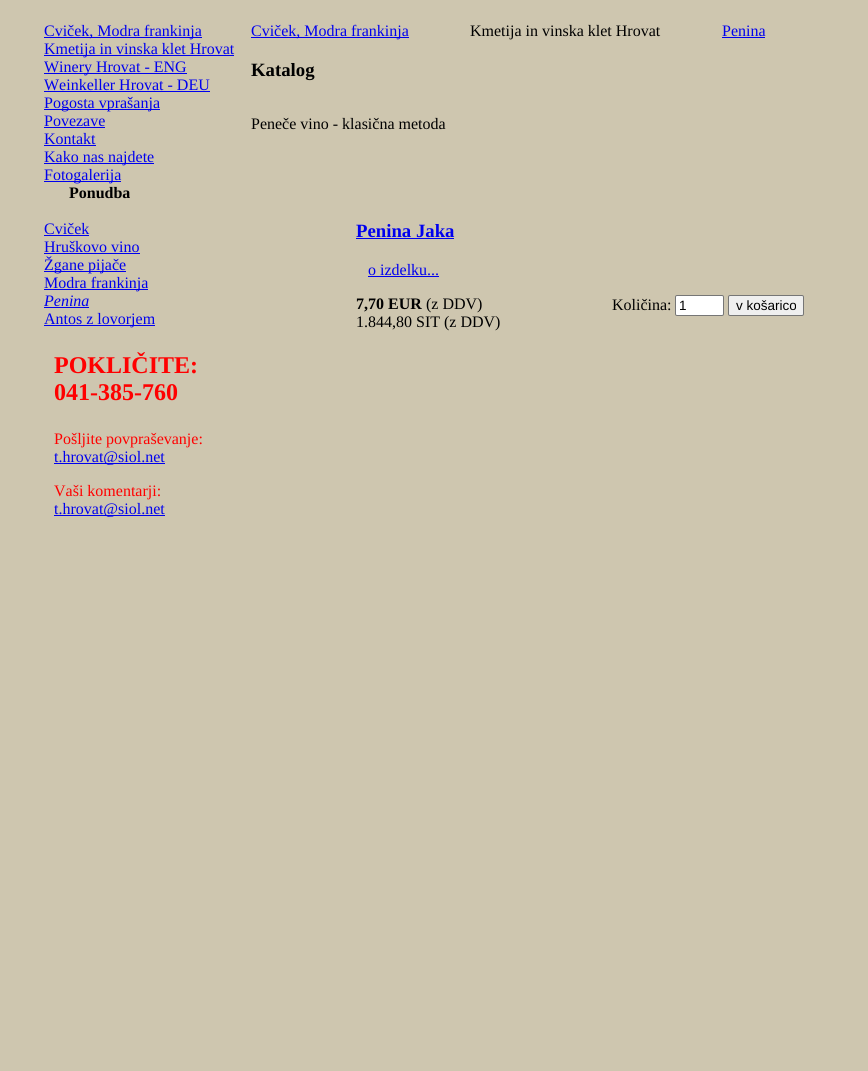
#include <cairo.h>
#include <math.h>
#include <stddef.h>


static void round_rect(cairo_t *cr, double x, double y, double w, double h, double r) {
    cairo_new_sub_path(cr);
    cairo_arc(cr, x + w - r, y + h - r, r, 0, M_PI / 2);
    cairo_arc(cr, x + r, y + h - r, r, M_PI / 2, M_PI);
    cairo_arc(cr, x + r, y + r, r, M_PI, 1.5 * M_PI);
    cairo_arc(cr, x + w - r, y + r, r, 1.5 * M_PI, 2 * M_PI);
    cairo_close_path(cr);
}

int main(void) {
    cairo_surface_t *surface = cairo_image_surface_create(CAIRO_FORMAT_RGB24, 868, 1071);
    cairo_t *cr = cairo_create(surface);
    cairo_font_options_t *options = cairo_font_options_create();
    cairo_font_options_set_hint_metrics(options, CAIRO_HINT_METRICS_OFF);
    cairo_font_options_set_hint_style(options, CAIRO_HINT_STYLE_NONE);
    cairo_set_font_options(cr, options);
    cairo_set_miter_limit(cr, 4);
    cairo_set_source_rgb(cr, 0.808, 0.776, 0.686);
    cairo_paint(cr);
    cairo_set_source_rgb(cr, 0, 0, 0.933);
    cairo_rectangle(cr, 44, 37, 158, 1);
    cairo_fill(cr);
    cairo_select_font_face(cr, "Liberation Serif", CAIRO_FONT_SLANT_NORMAL, CAIRO_FONT_WEIGHT_NORMAL);
    cairo_set_font_size(cr, 16);
    cairo_move_to(cr, 44, 36);
    cairo_show_text(cr, "Cviček, Modra frankinja");
    cairo_rectangle(cr, 44, 55, 190, 1);
    cairo_fill(cr);
    cairo_move_to(cr, 44, 54);
    cairo_show_text(cr, "Kmetija in vinska klet Hrovat");
    cairo_rectangle(cr, 44, 73, 143, 1);
    cairo_fill(cr);
    cairo_move_to(cr, 44, 72);
    cairo_show_text(cr, "Winery Hrovat - ENG");
    cairo_move_to(cr, 44, 90);
    cairo_show_text(cr, "Weinkeller Hrovat - DEU");
    cairo_rectangle(cr, 44, 91, 166, 1);
    cairo_fill(cr);
    cairo_rectangle(cr, 44, 109, 116, 1);
    cairo_fill(cr);
    cairo_move_to(cr, 44, 108);
    cairo_show_text(cr, "Pogosta vprašanja");
    cairo_move_to(cr, 44, 126);
    cairo_show_text(cr, "Povezave");
    cairo_rectangle(cr, 44, 127, 61, 1);
    cairo_fill(cr);
    cairo_move_to(cr, 44, 144);
    cairo_show_text(cr, "Kontakt");
    cairo_rectangle(cr, 44, 145, 52, 1);
    cairo_fill(cr);
    cairo_rectangle(cr, 44, 163, 110, 1);
    cairo_fill(cr);
    cairo_move_to(cr, 44, 162);
    cairo_show_text(cr, "Kako nas najdete");
    cairo_rectangle(cr, 44, 181, 77, 1);
    cairo_fill(cr);
    cairo_move_to(cr, 44, 180);
    cairo_show_text(cr, "Fotogalerija");
    cairo_select_font_face(cr, "Liberation Serif", CAIRO_FONT_SLANT_NORMAL, CAIRO_FONT_WEIGHT_BOLD);
    cairo_set_source_rgb(cr, 0, 0, 0);
    cairo_move_to(cr, 69, 198);
    cairo_show_text(cr, "Ponudba");
    cairo_select_font_face(cr, "Liberation Serif", CAIRO_FONT_SLANT_NORMAL, CAIRO_FONT_WEIGHT_NORMAL);
    cairo_set_source_rgb(cr, 0, 0, 0.933);
    cairo_move_to(cr, 44, 234);
    cairo_show_text(cr, "Cviček");
    cairo_rectangle(cr, 44, 235, 45, 1);
    cairo_fill(cr);
    cairo_move_to(cr, 44, 252);
    cairo_show_text(cr, "Hruškovo vino");
    cairo_rectangle(cr, 44, 253, 96, 1);
    cairo_fill(cr);
    cairo_rectangle(cr, 44, 271, 82, 1);
    cairo_fill(cr);
    cairo_move_to(cr, 44, 270);
    cairo_show_text(cr, "Žgane pijače");
    cairo_rectangle(cr, 44, 289, 104, 1);
    cairo_fill(cr);
    cairo_move_to(cr, 44, 288);
    cairo_show_text(cr, "Modra frankinja");
    cairo_select_font_face(cr, "Liberation Serif", CAIRO_FONT_SLANT_ITALIC, CAIRO_FONT_WEIGHT_NORMAL);
    cairo_move_to(cr, 44, 306);
    cairo_show_text(cr, "Penina");
    cairo_rectangle(cr, 44, 307, 45, 1);
    cairo_fill(cr);
    cairo_rectangle(cr, 44, 325, 111, 1);
    cairo_fill(cr);
    cairo_select_font_face(cr, "Liberation Serif", CAIRO_FONT_SLANT_NORMAL, CAIRO_FONT_WEIGHT_NORMAL);
    cairo_move_to(cr, 44, 324);
    cairo_show_text(cr, "Antos z lovorjem");
    cairo_select_font_face(cr, "Liberation Serif", CAIRO_FONT_SLANT_NORMAL, CAIRO_FONT_WEIGHT_BOLD);
    cairo_set_font_size(cr, 24);
    cairo_set_source_rgb(cr, 1, 0, 0);
    cairo_move_to(cr, 54, 373);
    cairo_show_text(cr, "POKLIČITE:");
    cairo_move_to(cr, 54, 400);
    cairo_show_text(cr, "041-385-760");
    cairo_select_font_face(cr, "Liberation Serif", CAIRO_FONT_SLANT_NORMAL, CAIRO_FONT_WEIGHT_NORMAL);
    cairo_set_font_size(cr, 16);
    cairo_move_to(cr, 54, 444);
    cairo_show_text(cr, "Pošljite povpraševanje:");
    cairo_set_source_rgb(cr, 0, 0, 0.933);
    cairo_rectangle(cr, 54, 463, 111, 1);
    cairo_fill(cr);
    cairo_move_to(cr, 54, 462);
    cairo_show_text(cr, "t.hrovat@siol.net");
    cairo_set_source_rgb(cr, 1, 0, 0);
    cairo_move_to(cr, 54, 496);
    cairo_show_text(cr, "Vaši komentarji:");
    cairo_set_source_rgb(cr, 0, 0, 0.933);
    cairo_rectangle(cr, 54, 515, 111, 1);
    cairo_fill(cr);
    cairo_move_to(cr, 54, 514);
    cairo_show_text(cr, "t.hrovat@siol.net");
    cairo_rectangle(cr, 251, 37, 158, 1);
    cairo_fill(cr);
    cairo_move_to(cr, 251, 36);
    cairo_show_text(cr, "Cviček, Modra frankinja");
    cairo_set_source_rgb(cr, 0, 0, 0);
    cairo_move_to(cr, 470, 36);
    cairo_show_text(cr, "Kmetija in vinska klet Hrovat");
    cairo_set_source_rgb(cr, 0, 0, 0.933);
    cairo_move_to(cr, 722, 36);
    cairo_show_text(cr, "Penina");
    cairo_rectangle(cr, 722, 37, 43, 1);
    cairo_fill(cr);
    cairo_select_font_face(cr, "Liberation Serif", CAIRO_FONT_SLANT_NORMAL, CAIRO_FONT_WEIGHT_BOLD);
    cairo_set_font_size(cr, 18.75);
    cairo_set_source_rgb(cr, 0, 0, 0);
    cairo_move_to(cr, 251, 76);
    cairo_show_text(cr, "Katalog");
    cairo_select_font_face(cr, "Liberation Serif", CAIRO_FONT_SLANT_NORMAL, CAIRO_FONT_WEIGHT_NORMAL);
    cairo_set_font_size(cr, 16);
    cairo_move_to(cr, 251, 129);
    cairo_show_text(cr, "Peneče vino - klasična metoda");
    cairo_select_font_face(cr, "Liberation Serif", CAIRO_FONT_SLANT_NORMAL, CAIRO_FONT_WEIGHT_BOLD);
    cairo_set_font_size(cr, 18.75);
    cairo_set_source_rgb(cr, 0, 0, 0.933);
    cairo_move_to(cr, 356, 237);
    cairo_show_text(cr, "Penina Jaka");
    cairo_rectangle(cr, 356, 238, 98, 1);
    cairo_fill(cr);
    cairo_select_font_face(cr, "Liberation Serif", CAIRO_FONT_SLANT_NORMAL, CAIRO_FONT_WEIGHT_NORMAL);
    cairo_set_font_size(cr, 16);
    cairo_move_to(cr, 368, 275);
    cairo_show_text(cr, "o izdelku...");
    cairo_rectangle(cr, 368, 276, 71, 1);
    cairo_fill(cr);
    cairo_select_font_face(cr, "Liberation Serif", CAIRO_FONT_SLANT_NORMAL, CAIRO_FONT_WEIGHT_BOLD);
    cairo_set_source_rgb(cr, 0, 0, 0);
    cairo_move_to(cr, 356, 309);
    cairo_show_text(cr, "7,70 EUR");
    cairo_select_font_face(cr, "Liberation Serif", CAIRO_FONT_SLANT_NORMAL, CAIRO_FONT_WEIGHT_NORMAL);
    cairo_move_to(cr, 426, 309);
    cairo_show_text(cr, "(z DDV)");
    cairo_move_to(cr, 356, 327);
    cairo_show_text(cr, "1.844,80 SIT (z DDV)");
    cairo_move_to(cr, 612, 310);
    cairo_show_text(cr, "Količina:");
    cairo_set_source_rgb(cr, 1, 1, 1);
    round_rect(cr, 675.5, 295.5, 48, 20, 1.5);
    cairo_fill_preserve(cr);
    cairo_set_source_rgb(cr, 0.463, 0.463, 0.463);
    cairo_set_line_width(cr, 1);
    cairo_stroke(cr);
    cairo_select_font_face(cr, "Liberation Sans", CAIRO_FONT_SLANT_NORMAL, CAIRO_FONT_WEIGHT_NORMAL);
    cairo_set_font_size(cr, 13.5);
    cairo_set_source_rgb(cr, 0, 0, 0);
    cairo_move_to(cr, 679, 310);
    cairo_show_text(cr, "1");
    cairo_set_source_rgb(cr, 0.937, 0.937, 0.937);
    round_rect(cr, 728.5, 295.5, 75, 20, 1.5);
    cairo_fill_preserve(cr);
    cairo_set_source_rgb(cr, 0.463, 0.463, 0.463);
    cairo_stroke(cr);
    cairo_set_source_rgb(cr, 0, 0, 0);
    cairo_move_to(cr, 736, 310);
    cairo_show_text(cr, "v košarico");
    cairo_surface_write_to_png(surface, "page.png");
    cairo_font_options_destroy(options);
    cairo_destroy(cr);
    cairo_surface_destroy(surface);
    return 0;
}
